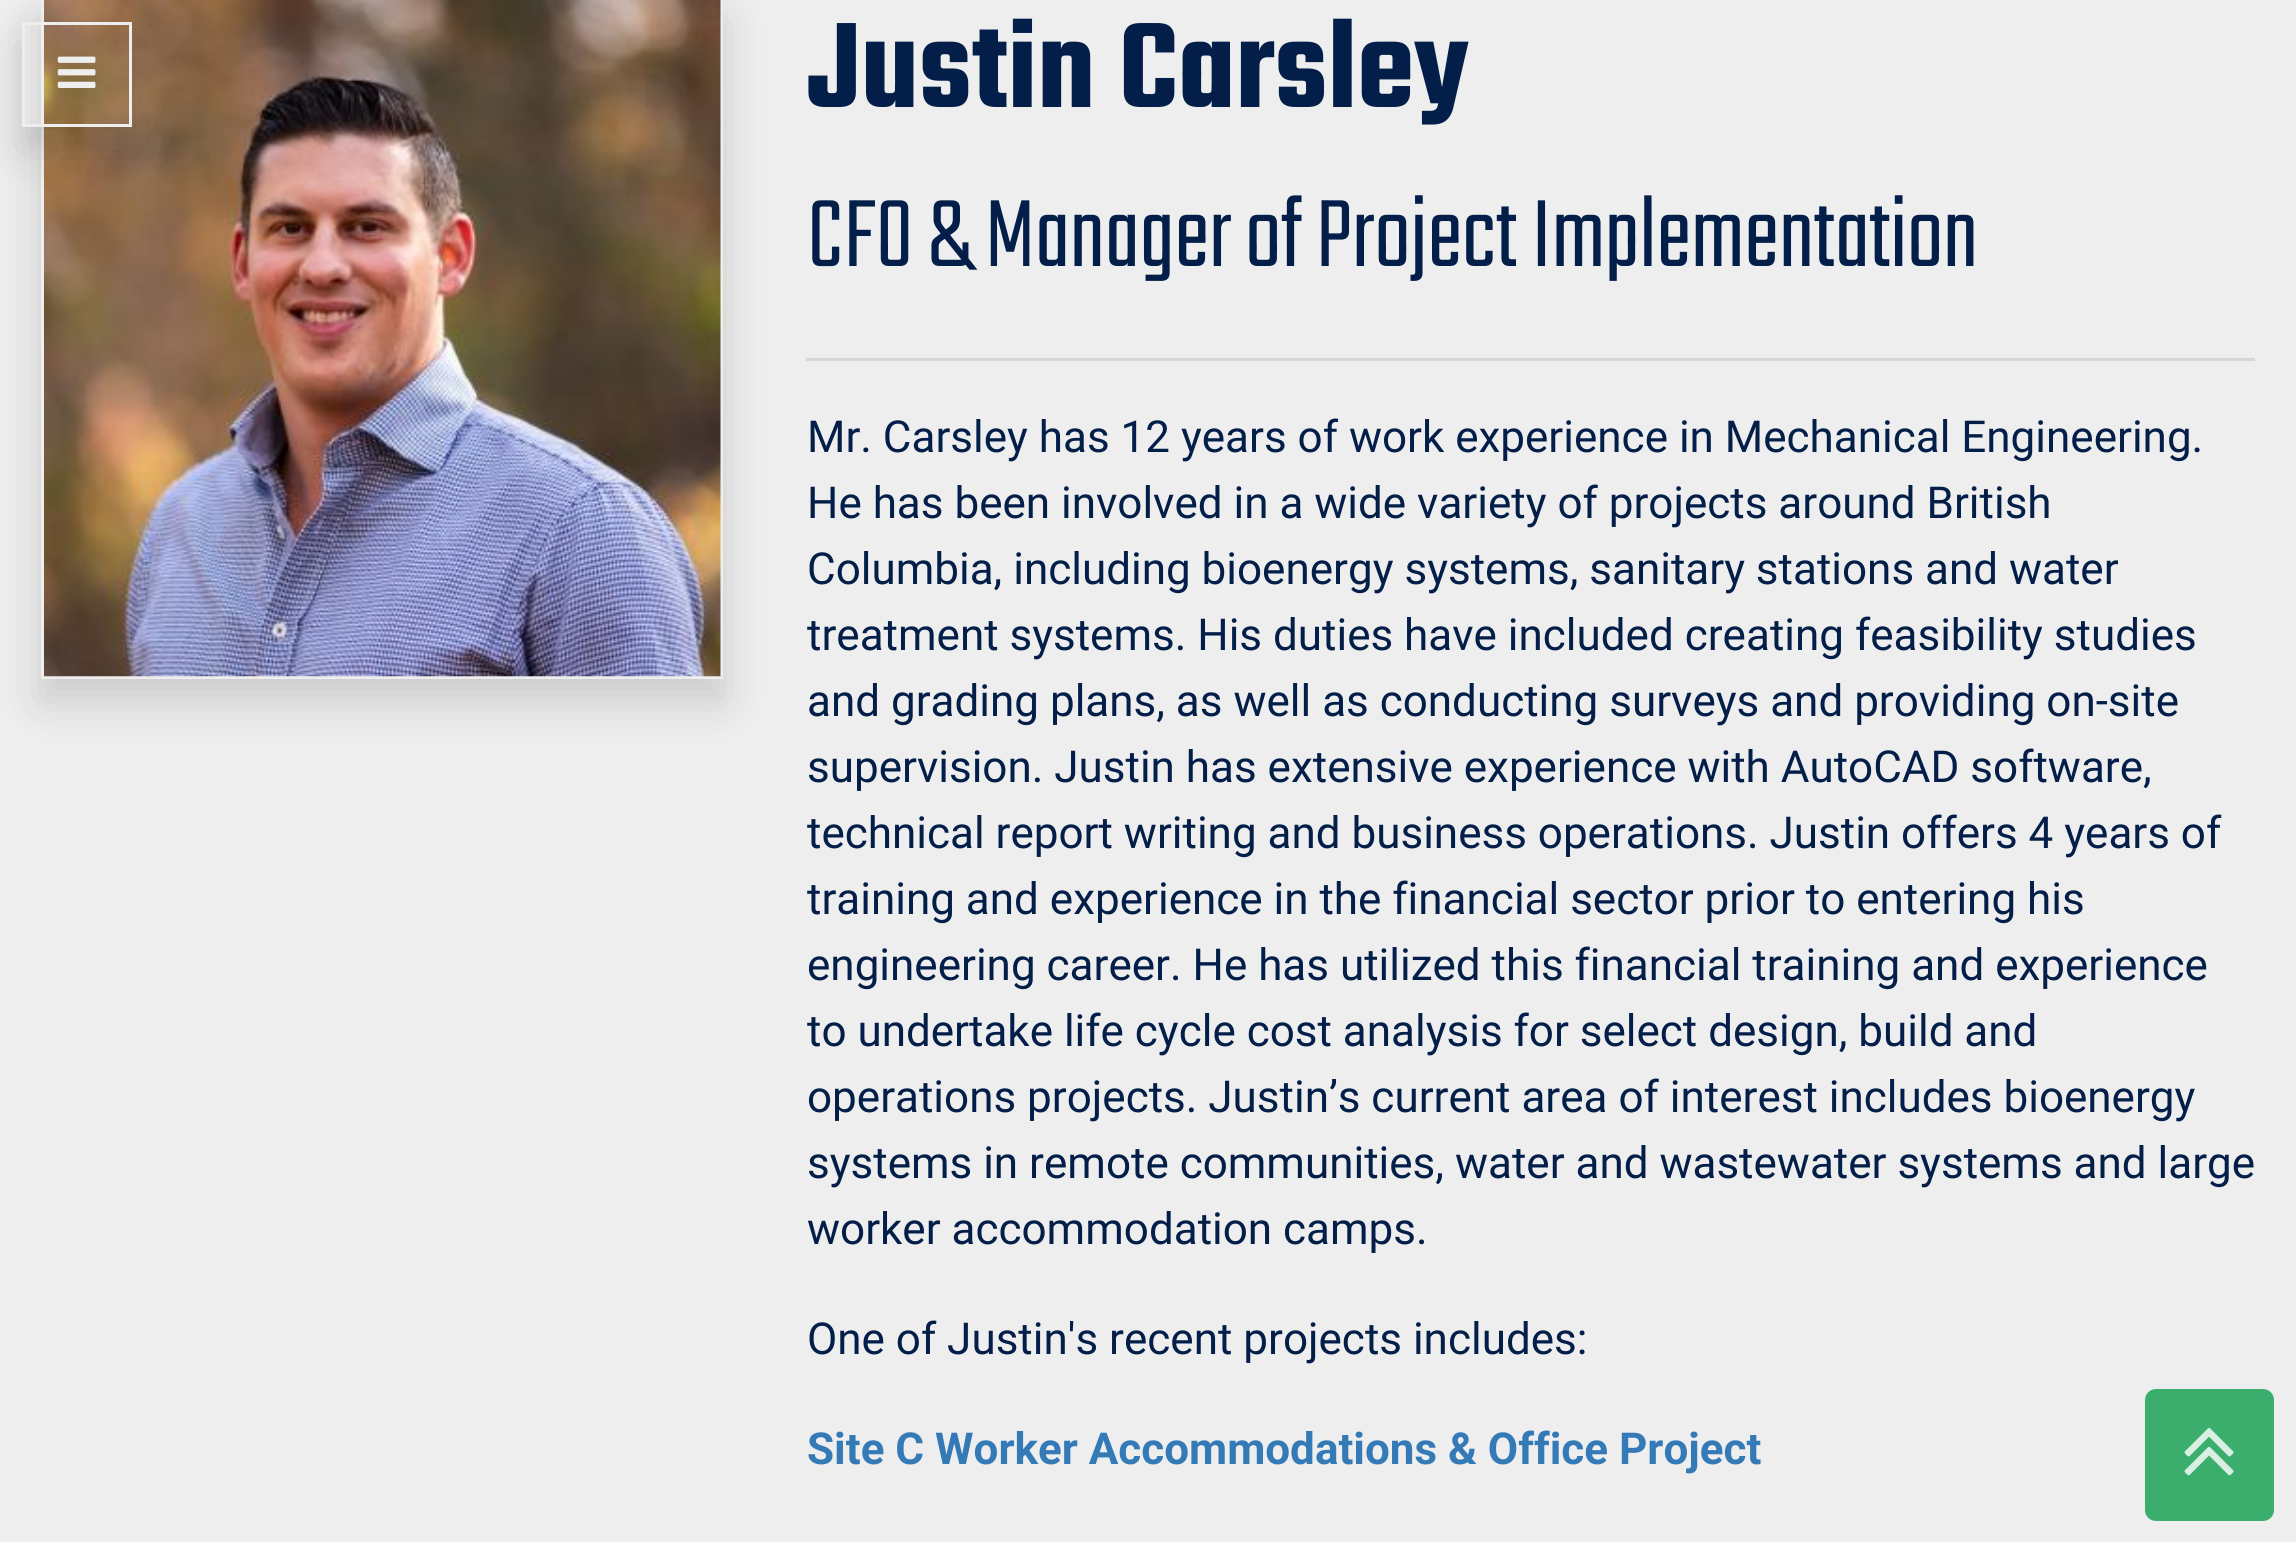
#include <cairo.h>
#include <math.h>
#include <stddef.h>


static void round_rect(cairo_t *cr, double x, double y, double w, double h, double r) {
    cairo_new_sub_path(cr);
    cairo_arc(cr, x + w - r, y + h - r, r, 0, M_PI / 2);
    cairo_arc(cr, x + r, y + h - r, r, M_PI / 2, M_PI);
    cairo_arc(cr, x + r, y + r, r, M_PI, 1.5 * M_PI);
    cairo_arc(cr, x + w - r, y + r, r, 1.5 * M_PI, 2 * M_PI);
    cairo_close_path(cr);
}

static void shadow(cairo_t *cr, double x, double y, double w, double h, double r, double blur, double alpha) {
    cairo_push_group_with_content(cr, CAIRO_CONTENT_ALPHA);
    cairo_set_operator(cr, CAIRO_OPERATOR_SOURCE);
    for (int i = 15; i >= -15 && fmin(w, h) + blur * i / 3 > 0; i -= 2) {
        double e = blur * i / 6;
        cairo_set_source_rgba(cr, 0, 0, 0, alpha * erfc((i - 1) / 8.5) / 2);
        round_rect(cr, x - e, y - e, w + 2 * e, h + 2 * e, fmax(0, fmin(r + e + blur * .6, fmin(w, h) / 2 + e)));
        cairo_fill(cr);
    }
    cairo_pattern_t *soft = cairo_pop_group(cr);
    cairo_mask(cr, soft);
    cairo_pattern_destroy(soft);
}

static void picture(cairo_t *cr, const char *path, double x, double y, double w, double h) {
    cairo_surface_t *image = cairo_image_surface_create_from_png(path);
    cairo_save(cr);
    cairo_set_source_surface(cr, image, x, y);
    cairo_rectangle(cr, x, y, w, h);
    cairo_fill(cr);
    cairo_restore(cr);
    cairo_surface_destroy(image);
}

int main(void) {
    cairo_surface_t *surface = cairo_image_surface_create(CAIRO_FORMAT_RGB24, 2296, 1542);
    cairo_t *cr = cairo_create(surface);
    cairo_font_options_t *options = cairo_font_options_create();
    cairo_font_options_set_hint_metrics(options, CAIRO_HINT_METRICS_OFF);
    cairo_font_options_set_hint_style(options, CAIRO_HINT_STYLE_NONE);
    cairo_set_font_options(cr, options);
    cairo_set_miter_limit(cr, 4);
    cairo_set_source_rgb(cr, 0.933, 0.933, 0.933);
    cairo_paint(cr);
    cairo_set_source_rgb(cr, 0, 0, 0);
    shadow(cr, 41, 19, 682, 682, 0, 22, 0.15);
    cairo_rectangle(cr, 42.5, -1.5, 679, 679);
    cairo_set_source_rgb(cr, 0.933, 0.933, 0.933);
    cairo_set_line_width(cr, 3);
    cairo_stroke(cr);
    picture(cr, "img2.png", 44, 0, 677, 677);
    cairo_save(cr);
    cairo_set_fill_rule(cr, CAIRO_FILL_RULE_EVEN_ODD);
    cairo_new_path(cr);
    cairo_move_to(cr, 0, 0);
    cairo_line_to(cr, 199, 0);
    cairo_line_to(cr, 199, 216);
    cairo_line_to(cr, 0, 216);
    cairo_close_path(cr);
    cairo_move_to(cr, 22, 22);
    cairo_line_to(cr, 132, 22);
    cairo_line_to(cr, 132, 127);
    cairo_line_to(cr, 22, 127);
    cairo_close_path(cr);
    cairo_clip(cr);
    cairo_set_source_rgb(cr, 0, 0, 0);
    shadow(cr, 22, 44, 110, 105, 0, 22, 0.15);
    cairo_restore(cr);
    cairo_rectangle(cr, 23.5, 23.5, 107, 102);
    cairo_stroke(cr);
    picture(cr, "img1.png", 57, 56, 39, 32);
    cairo_select_font_face(cr, "Teko SemiBold", CAIRO_FONT_SLANT_NORMAL, CAIRO_FONT_WEIGHT_NORMAL);
    cairo_set_font_size(cr, 132);
    cairo_set_source_rgb(cr, 0.012, 0.122, 0.286);
    cairo_move_to(cr, 807, 107);
    cairo_show_text(cr, "Justin Carsley");
    cairo_select_font_face(cr, "Teko Light", CAIRO_FONT_SLANT_NORMAL, CAIRO_FONT_WEIGHT_NORMAL);
    cairo_set_font_size(cr, 105.6);
    cairo_move_to(cr, 807, 266);
    cairo_show_text(cr, "CFO & Manager of Project Implementation");
    cairo_set_source_rgb(cr, 0.839, 0.839, 0.839);
    cairo_rectangle(cr, 806, 358, 1449, 3);
    cairo_fill(cr);
    cairo_select_font_face(cr, "Roboto", CAIRO_FONT_SLANT_NORMAL, CAIRO_FONT_WEIGHT_NORMAL);
    cairo_set_font_size(cr, 44);
    cairo_set_source_rgb(cr, 0.012, 0.122, 0.286);
    cairo_move_to(cr, 807, 452);
    cairo_show_text(cr, "Mr. Carsley has 12 years of work experience in Mechanical Engineering.");
    cairo_move_to(cr, 807, 518);
    cairo_show_text(cr, "He has been involved in a wide variety of projects around British");
    cairo_move_to(cr, 807, 584);
    cairo_show_text(cr, "Columbia, including bioenergy systems, sanitary stations and water");
    cairo_move_to(cr, 807, 650);
    cairo_show_text(cr, "treatment systems. His duties have included creating feasibility studies");
    cairo_move_to(cr, 807, 716);
    cairo_show_text(cr, "and grading plans, as well as conducting surveys and providing on-site");
    cairo_move_to(cr, 807, 782);
    cairo_show_text(cr, "supervision. Justin has extensive experience with AutoCAD software,");
    cairo_move_to(cr, 807, 848);
    cairo_show_text(cr, "technical report writing and business operations. Justin offers 4 years of");
    cairo_move_to(cr, 807, 914);
    cairo_show_text(cr, "training and experience in the financial sector prior to entering his");
    cairo_move_to(cr, 807, 980);
    cairo_show_text(cr, "engineering career. He has utilized this financial training and experience");
    cairo_move_to(cr, 807, 1046);
    cairo_show_text(cr, "to undertake life cycle cost analysis for select design, build and");
    cairo_move_to(cr, 807, 1112);
    cairo_show_text(cr, "operations projects. Justin’s current area of interest includes bioenergy");
    cairo_move_to(cr, 807, 1178);
    cairo_show_text(cr, "systems in remote communities, water and wastewater systems and large");
    cairo_move_to(cr, 807, 1244);
    cairo_show_text(cr, "worker accommodation camps.");
    cairo_move_to(cr, 807, 1354);
    cairo_show_text(cr, "One of Justin's recent projects includes:");
    cairo_select_font_face(cr, "Roboto", CAIRO_FONT_SLANT_NORMAL, CAIRO_FONT_WEIGHT_BOLD);
    cairo_set_source_rgb(cr, 0.2, 0.478, 0.718);
    cairo_move_to(cr, 807, 1464);
    cairo_show_text(cr, "Site C Worker Accommodations & Office Project");
    cairo_set_source_rgb(cr, 0.231, 0.678, 0.424);
    round_rect(cr, 2146.5, 1390.5, 126, 129, 9.5);
    cairo_fill_preserve(cr);
    cairo_stroke(cr);
    picture(cr, "img3.png", 2184, 1427, 50, 49);
    cairo_surface_write_to_png(surface, "page.png");
    cairo_font_options_destroy(options);
    cairo_destroy(cr);
    cairo_surface_destroy(surface);
    return 0;
}
